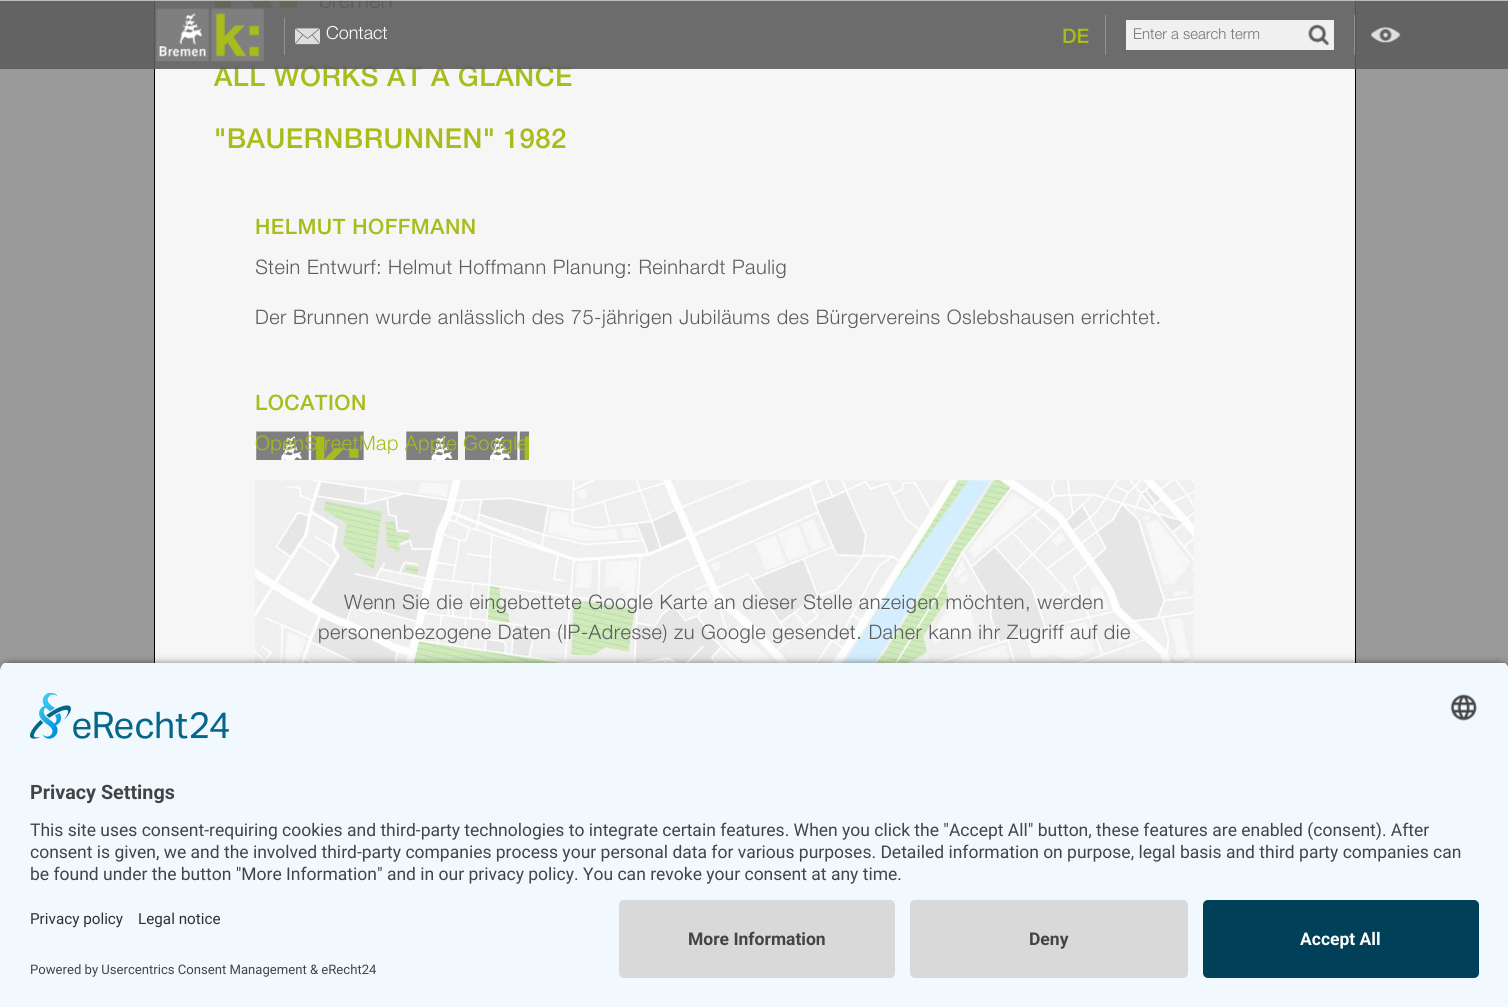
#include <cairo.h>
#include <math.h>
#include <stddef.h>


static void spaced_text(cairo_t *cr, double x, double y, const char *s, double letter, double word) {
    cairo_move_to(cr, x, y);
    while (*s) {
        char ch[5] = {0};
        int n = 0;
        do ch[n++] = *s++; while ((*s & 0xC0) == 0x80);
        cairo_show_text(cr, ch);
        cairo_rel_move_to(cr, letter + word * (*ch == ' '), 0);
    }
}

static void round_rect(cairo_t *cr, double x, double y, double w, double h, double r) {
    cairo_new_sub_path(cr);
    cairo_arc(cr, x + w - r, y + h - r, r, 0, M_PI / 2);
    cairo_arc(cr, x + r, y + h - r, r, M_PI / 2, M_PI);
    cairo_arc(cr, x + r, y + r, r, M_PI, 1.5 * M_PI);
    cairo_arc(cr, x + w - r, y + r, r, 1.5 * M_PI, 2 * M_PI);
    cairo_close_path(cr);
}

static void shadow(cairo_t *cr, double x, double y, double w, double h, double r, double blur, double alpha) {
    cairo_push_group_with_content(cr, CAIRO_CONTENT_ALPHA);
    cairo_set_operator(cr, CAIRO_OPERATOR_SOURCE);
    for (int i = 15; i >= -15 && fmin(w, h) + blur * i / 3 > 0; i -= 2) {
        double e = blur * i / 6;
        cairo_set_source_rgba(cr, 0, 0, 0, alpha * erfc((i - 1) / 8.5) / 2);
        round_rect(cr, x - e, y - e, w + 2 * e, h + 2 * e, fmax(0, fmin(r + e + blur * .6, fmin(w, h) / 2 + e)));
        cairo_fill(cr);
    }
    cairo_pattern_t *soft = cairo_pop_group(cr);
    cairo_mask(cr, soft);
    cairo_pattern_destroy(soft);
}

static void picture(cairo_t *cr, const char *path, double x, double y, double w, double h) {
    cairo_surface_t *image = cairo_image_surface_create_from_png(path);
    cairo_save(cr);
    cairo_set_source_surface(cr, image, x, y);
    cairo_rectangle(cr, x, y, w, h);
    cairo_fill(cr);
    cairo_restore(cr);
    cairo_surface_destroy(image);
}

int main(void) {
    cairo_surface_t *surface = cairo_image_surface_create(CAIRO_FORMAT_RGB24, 1508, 1007);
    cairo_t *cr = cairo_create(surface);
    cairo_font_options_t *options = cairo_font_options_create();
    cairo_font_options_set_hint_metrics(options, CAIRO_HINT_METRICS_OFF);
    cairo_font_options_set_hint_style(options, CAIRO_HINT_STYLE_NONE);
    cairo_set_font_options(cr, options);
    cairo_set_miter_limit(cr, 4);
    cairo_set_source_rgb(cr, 0.604, 0.604, 0.604);
    cairo_paint(cr);
    cairo_set_source_rgb(cr, 0.961, 0.961, 0.961);
    cairo_rectangle(cr, 155, 1, 1200, 662);
    cairo_fill(cr);
    cairo_set_source_rgb(cr, 0, 0, 0);
    cairo_rectangle(cr, 1355, 0, 1, 663);
    cairo_fill(cr);
    cairo_rectangle(cr, 154, 0, 1, 663);
    cairo_fill(cr);
    picture(cr, "img5.png", 215, 1, 177, 8);
    cairo_select_font_face(cr, "Helvetica Neue Medium", CAIRO_FONT_SLANT_NORMAL, CAIRO_FONT_WEIGHT_NORMAL);
    cairo_set_font_size(cr, 27.5);
    cairo_set_source_rgb(cr, 0.659, 0.737, 0.106);
    spaced_text(cr, 214, 86, "ALL WORKS AT A GLANCE", 0.5, 0);
    cairo_set_source_rgba(cr, 0.365, 0.365, 0.365, 0.9);
    cairo_rectangle(cr, 0, 1, 1508, 68);
    cairo_fill(cr);
    cairo_set_source_rgb(cr, 0.737, 0.737, 0.737);
    cairo_rectangle(cr, 0, 0, 1508, 1);
    cairo_fill(cr);
    picture(cr, "img1.png", 156, 8, 108, 54);
    cairo_set_source_rgb(cr, 0.576, 0.576, 0.576);
    cairo_rectangle(cr, 284, 18, 1, 37);
    cairo_fill(cr);
    picture(cr, "img2.png", 295, 28, 25, 17);
    cairo_select_font_face(cr, "Helvetica Neue Light", CAIRO_FONT_SLANT_NORMAL, CAIRO_FONT_WEIGHT_NORMAL);
    cairo_set_font_size(cr, 18);
    cairo_set_source_rgb(cr, 1, 1, 1);
    cairo_move_to(cr, 326, 39);
    cairo_show_text(cr, "Contact");
    cairo_select_font_face(cr, "Helvetica Neue Medium", CAIRO_FONT_SLANT_NORMAL, CAIRO_FONT_WEIGHT_NORMAL);
    cairo_set_font_size(cr, 20);
    cairo_set_source_rgb(cr, 0.659, 0.737, 0.106);
    cairo_move_to(cr, 1062, 43);
    cairo_show_text(cr, "DE");
    cairo_set_source_rgb(cr, 0.576, 0.576, 0.576);
    cairo_rectangle(cr, 1354, 15, 1, 40);
    cairo_fill(cr);
    cairo_rectangle(cr, 1105, 15, 1, 40);
    cairo_fill(cr);
    cairo_set_source_rgb(cr, 0.941, 0.941, 0.941);
    cairo_rectangle(cr, 1126, 20, 208, 30);
    cairo_fill(cr);
    cairo_select_font_face(cr, "Helvetica Neue Light", CAIRO_FONT_SLANT_NORMAL, CAIRO_FONT_WEIGHT_NORMAL);
    cairo_set_font_size(cr, 15);
    cairo_set_source_rgb(cr, 0.459, 0.459, 0.459);
    cairo_move_to(cr, 1133, 39);
    cairo_show_text(cr, "Enter a search term");
    picture(cr, "img3.png", 1308, 24, 22, 22);
    picture(cr, "img4.png", 1370, 27, 31, 16);
    cairo_set_source_rgb(cr, 0.98, 0.98, 0.98);
    cairo_rectangle(cr, 255, 480, 939, 183);
    cairo_fill(cr);
    cairo_select_font_face(cr, "Helvetica Neue Medium", CAIRO_FONT_SLANT_NORMAL, CAIRO_FONT_WEIGHT_NORMAL);
    cairo_set_font_size(cr, 27.5);
    cairo_set_source_rgb(cr, 0.659, 0.737, 0.106);
    spaced_text(cr, 214, 148, "\"BAUERNBRUNNEN\" 1982", 0.5, 0);
    cairo_set_font_size(cr, 21.25);
    spaced_text(cr, 255, 234, "HELMUT HOFFMANN", 0.5, 0);
    cairo_select_font_face(cr, "Helvetica Neue Light", CAIRO_FONT_SLANT_NORMAL, CAIRO_FONT_WEIGHT_NORMAL);
    cairo_set_font_size(cr, 20);
    cairo_set_source_rgb(cr, 0.357, 0.361, 0.361);
    spaced_text(cr, 255, 274, "Stein Entwurf: Helmut Hoffmann Planung: Reinhardt Paulig", 0.5, 0);
    spaced_text(cr, 255, 324, "Der Brunnen wurde anlässlich des 75-jährigen Jubiläums des Bürgervereins Oslebshausen errichtet.", 0.5, 0);
    cairo_select_font_face(cr, "Helvetica Neue Medium", CAIRO_FONT_SLANT_NORMAL, CAIRO_FONT_WEIGHT_NORMAL);
    cairo_set_font_size(cr, 21.25);
    cairo_set_source_rgb(cr, 0.659, 0.737, 0.106);
    spaced_text(cr, 255, 410, "LOCATION", 0.5, 0);
    picture(cr, "img6.png", 256, 431, 108, 29);
    cairo_select_font_face(cr, "Helvetica Neue Light", CAIRO_FONT_SLANT_NORMAL, CAIRO_FONT_WEIGHT_NORMAL);
    cairo_set_font_size(cr, 20);
    spaced_text(cr, 255, 450, "OpenStreetMap", 0.5, 0);
    picture(cr, "img7.png", 406, 431, 52, 29);
    spaced_text(cr, 405, 450, "Apple", 0.5, 0);
    picture(cr, "img8.png", 465, 431, 64, 29);
    spaced_text(cr, 463, 450, "Google", 0.5, 0);
    picture(cr, "img9.png", 255, 480, 939, 183);
    cairo_set_source_rgb(cr, 0.357, 0.361, 0.361);
    spaced_text(cr, 344, 609, "Wenn Sie die eingebettete Google Karte an dieser Stelle anzeigen möchten, werden", 0.5, 0);
    spaced_text(cr, 318, 639, "personenbezogene Daten (IP-Adresse) zu Google gesendet. Daher kann ihr Zugriff auf die", 0.5, 0);
    cairo_set_source_rgb(cr, 0, 0, 0);
    shadow(cr, 0, 665, 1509, 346, 10, 4.5, 0.8);
    cairo_save(cr);
    cairo_new_path(cr);
    cairo_move_to(cr, 10, 661);
    cairo_line_to(cr, 1499, 661);
    cairo_curve_to(cr, 1504.5, 661, 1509, 665.5, 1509, 671);
    cairo_line_to(cr, 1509, 890);
    cairo_line_to(cr, 0, 890);
    cairo_line_to(cr, 0, 671);
    cairo_curve_to(cr, 0, 665.5, 4.5, 661, 10, 661);
    cairo_close_path(cr);
    cairo_clip(cr);
    cairo_set_source_rgb(cr, 0.945, 0.973, 1);
    cairo_rectangle(cr, 0, 663, 1508, 227);
    cairo_fill(cr);
    cairo_restore(cr);
    picture(cr, "img10.png", 30, 693, 199, 46);
    picture(cr, "img11.png", 1450, 694, 27, 27);
    cairo_select_font_face(cr, "Roboto", CAIRO_FONT_SLANT_NORMAL, CAIRO_FONT_WEIGHT_BOLD);
    cairo_set_font_size(cr, 19.75);
    cairo_set_source_rgb(cr, 0.267, 0.267, 0.267);
    cairo_move_to(cr, 30, 799);
    cairo_show_text(cr, "Privacy Settings");
    cairo_select_font_face(cr, "Roboto", CAIRO_FONT_SLANT_NORMAL, CAIRO_FONT_WEIGHT_NORMAL);
    cairo_set_font_size(cr, 17.5);
    cairo_move_to(cr, 30, 836);
    cairo_show_text(cr, "This site uses consent-requiring cookies and third-party technologies to integrate certain features. When you click the \"Accept All\" button, these features are enabled (consent). After");
    cairo_move_to(cr, 30, 858);
    cairo_show_text(cr, "consent is given, we and the involved third-party companies process your personal data for various purposes. Detailed information on purpose, legal basis and third party companies can");
    cairo_move_to(cr, 30, 880);
    cairo_show_text(cr, "be found under the button \"More Information\" and in our privacy policy. You can revoke your consent at any time.");
    cairo_set_source_rgb(cr, 0.945, 0.973, 1);
    cairo_rectangle(cr, 0, 890, 1508, 117);
    cairo_fill(cr);
    cairo_set_font_size(cr, 15.25);
    cairo_set_source_rgb(cr, 0.188, 0.188, 0.188);
    cairo_move_to(cr, 30, 924);
    cairo_show_text(cr, "Privacy policy");
    cairo_move_to(cr, 138, 924);
    cairo_show_text(cr, "Legal notice");
    cairo_set_font_size(cr, 13.1);
    cairo_set_source_rgb(cr, 0.267, 0.267, 0.267);
    cairo_move_to(cr, 30, 974);
    cairo_show_text(cr, "Powered by Usercentrics Consent Management & eRecht24");
    cairo_set_source_rgb(cr, 0.851, 0.851, 0.851);
    round_rect(cr, 619, 900, 276, 78, 5);
    cairo_fill(cr);
    cairo_select_font_face(cr, "Roboto", CAIRO_FONT_SLANT_NORMAL, CAIRO_FONT_WEIGHT_BOLD);
    cairo_set_font_size(cr, 17.5);
    cairo_set_source_rgb(cr, 0.267, 0.267, 0.267);
    cairo_move_to(cr, 688, 945);
    cairo_show_text(cr, "More Information");
    cairo_set_source_rgb(cr, 0.851, 0.851, 0.851);
    round_rect(cr, 910, 900, 278, 78, 5);
    cairo_fill(cr);
    cairo_set_source_rgb(cr, 0.267, 0.267, 0.267);
    cairo_move_to(cr, 1029, 945);
    cairo_show_text(cr, "Deny");
    cairo_set_source_rgb(cr, 0, 0.251, 0.349);
    round_rect(cr, 1203, 900, 276, 78, 5);
    cairo_fill(cr);
    cairo_set_source_rgb(cr, 1, 1, 1);
    cairo_move_to(cr, 1300, 945);
    cairo_show_text(cr, "Accept All");
    cairo_surface_write_to_png(surface, "page.png");
    cairo_font_options_destroy(options);
    cairo_destroy(cr);
    cairo_surface_destroy(surface);
    return 0;
}
